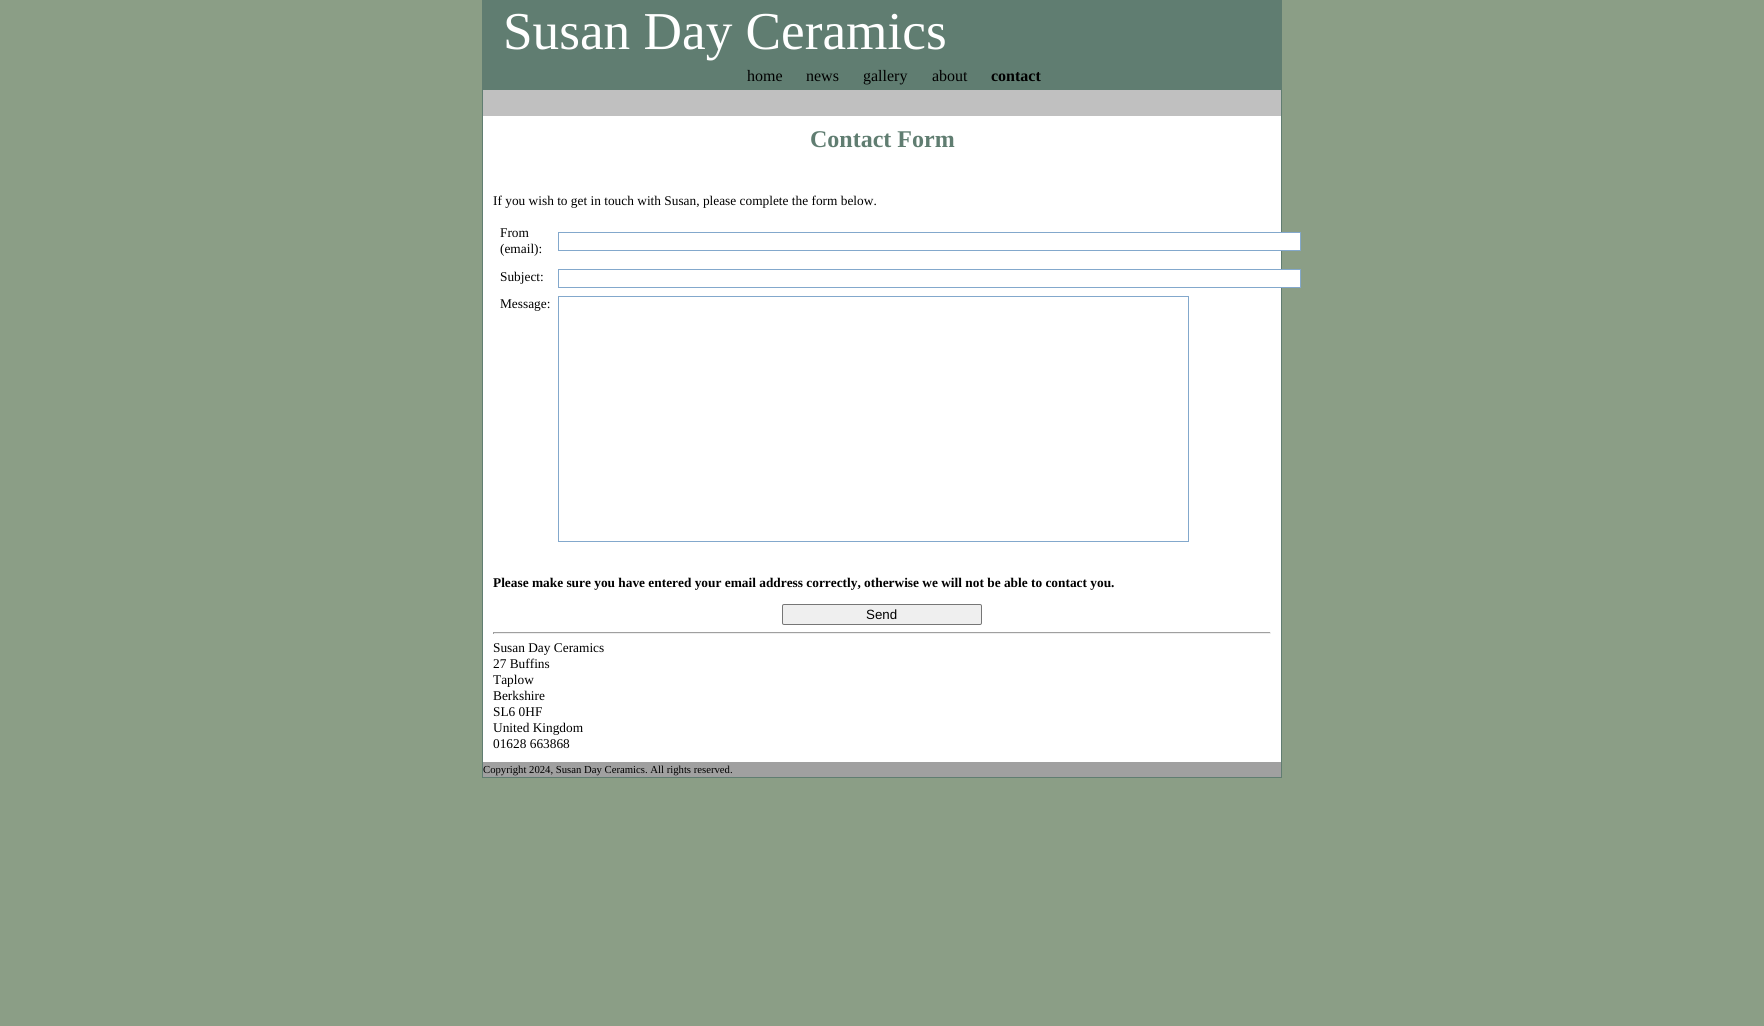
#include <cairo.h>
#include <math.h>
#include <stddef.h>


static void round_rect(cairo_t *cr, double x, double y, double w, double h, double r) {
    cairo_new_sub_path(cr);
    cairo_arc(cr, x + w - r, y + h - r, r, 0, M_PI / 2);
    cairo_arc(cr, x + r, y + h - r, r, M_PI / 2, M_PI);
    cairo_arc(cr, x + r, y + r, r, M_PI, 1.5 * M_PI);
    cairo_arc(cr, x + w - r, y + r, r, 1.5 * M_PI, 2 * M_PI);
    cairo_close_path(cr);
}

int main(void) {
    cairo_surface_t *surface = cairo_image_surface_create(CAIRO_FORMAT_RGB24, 1764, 1026);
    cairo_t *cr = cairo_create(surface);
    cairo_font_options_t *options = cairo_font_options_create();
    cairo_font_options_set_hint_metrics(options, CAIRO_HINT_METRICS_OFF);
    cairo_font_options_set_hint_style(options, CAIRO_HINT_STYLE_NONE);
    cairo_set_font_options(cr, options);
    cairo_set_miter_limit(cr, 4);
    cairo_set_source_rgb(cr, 0.545, 0.62, 0.525);
    cairo_paint(cr);
    cairo_set_source_rgb(cr, 1, 1, 1);
    cairo_rectangle(cr, 483, 116, 798, 646);
    cairo_fill(cr);
    cairo_set_source_rgb(cr, 0.376, 0.49, 0.443);
    cairo_rectangle(cr, 1281, 0, 1, 778);
    cairo_fill(cr);
    cairo_rectangle(cr, 482, 0, 1, 762);
    cairo_fill(cr);
    cairo_rectangle(cr, 483, 0, 798, 90);
    cairo_fill(cr);
    cairo_select_font_face(cr, "Liberation Serif", CAIRO_FONT_SLANT_NORMAL, CAIRO_FONT_WEIGHT_NORMAL);
    cairo_set_font_size(cr, 53.25);
    cairo_set_source_rgb(cr, 1, 1, 1);
    cairo_move_to(cr, 503, 49);
    cairo_show_text(cr, "Susan Day Ceramics");
    cairo_set_font_size(cr, 16);
    cairo_set_source_rgb(cr, 0, 0, 0);
    cairo_move_to(cr, 747, 81);
    cairo_show_text(cr, "home");
    cairo_move_to(cr, 806, 81);
    cairo_show_text(cr, "news");
    cairo_move_to(cr, 863, 81);
    cairo_show_text(cr, "gallery");
    cairo_move_to(cr, 932, 81);
    cairo_show_text(cr, "about");
    cairo_select_font_face(cr, "Liberation Serif", CAIRO_FONT_SLANT_NORMAL, CAIRO_FONT_WEIGHT_BOLD);
    cairo_move_to(cr, 991, 81);
    cairo_show_text(cr, "contact");
    cairo_set_source_rgb(cr, 0.753, 0.753, 0.753);
    cairo_rectangle(cr, 483, 90, 798, 26);
    cairo_fill(cr);
    cairo_set_font_size(cr, 24);
    cairo_set_source_rgb(cr, 0.376, 0.49, 0.443);
    cairo_move_to(cr, 810, 147);
    cairo_show_text(cr, "Contact Form");
    cairo_select_font_face(cr, "Liberation Serif", CAIRO_FONT_SLANT_NORMAL, CAIRO_FONT_WEIGHT_NORMAL);
    cairo_set_font_size(cr, 13.35);
    cairo_set_source_rgb(cr, 0, 0, 0);
    cairo_move_to(cr, 493, 205);
    cairo_show_text(cr, "If you wish to get in touch with Susan, please complete the form below.");
    cairo_move_to(cr, 500, 237);
    cairo_show_text(cr, "From");
    cairo_move_to(cr, 500, 253);
    cairo_show_text(cr, "(email):");
    cairo_set_source_rgb(cr, 1, 1, 1);
    cairo_rectangle(cr, 1281, 233, 19, 17);
    cairo_fill(cr);
    cairo_rectangle(cr, 558.5, 232.5, 742, 18);
    cairo_set_source_rgb(cr, 0.514, 0.659, 0.8);
    cairo_set_line_width(cr, 1);
    cairo_stroke(cr);
    cairo_set_source_rgb(cr, 0, 0, 0);
    cairo_move_to(cr, 500, 281);
    cairo_show_text(cr, "Subject:");
    cairo_set_source_rgb(cr, 1, 1, 1);
    cairo_rectangle(cr, 1281, 270, 19, 17);
    cairo_fill(cr);
    cairo_rectangle(cr, 558.5, 269.5, 742, 18);
    cairo_set_source_rgb(cr, 0.514, 0.659, 0.8);
    cairo_stroke(cr);
    cairo_set_source_rgb(cr, 0, 0, 0);
    cairo_move_to(cr, 500, 308);
    cairo_show_text(cr, "Message:");
    cairo_rectangle(cr, 558.5, 296.5, 630, 245);
    cairo_set_source_rgb(cr, 0.514, 0.659, 0.8);
    cairo_stroke(cr);
    cairo_select_font_face(cr, "Liberation Serif", CAIRO_FONT_SLANT_NORMAL, CAIRO_FONT_WEIGHT_BOLD);
    cairo_set_source_rgb(cr, 0, 0, 0);
    cairo_move_to(cr, 493, 587);
    cairo_show_text(cr, "Please make sure you have entered your email address correctly, otherwise we will not be able to contact you.");
    cairo_set_source_rgb(cr, 0.937, 0.937, 0.937);
    round_rect(cr, 782.5, 604.5, 199, 20, 1.5);
    cairo_fill_preserve(cr);
    cairo_set_source_rgb(cr, 0.463, 0.463, 0.463);
    cairo_stroke(cr);
    cairo_select_font_face(cr, "Liberation Sans", CAIRO_FONT_SLANT_NORMAL, CAIRO_FONT_WEIGHT_NORMAL);
    cairo_set_source_rgb(cr, 0, 0, 0);
    cairo_move_to(cr, 866, 619);
    cairo_show_text(cr, "Send");
    cairo_set_source_rgb(cr, 0.624, 0.624, 0.624);
    cairo_rectangle(cr, 493, 632, 778, 1);
    cairo_fill(cr);
    cairo_set_source_rgb(cr, 0.933, 0.933, 0.933);
    cairo_rectangle(cr, 1270, 632, 1, 2);
    cairo_fill(cr);
    cairo_rectangle(cr, 493, 633, 778, 1);
    cairo_fill(cr);
    cairo_set_source_rgb(cr, 0.624, 0.624, 0.624);
    cairo_rectangle(cr, 493, 632, 1, 2);
    cairo_fill(cr);
    cairo_select_font_face(cr, "Liberation Serif", CAIRO_FONT_SLANT_NORMAL, CAIRO_FONT_WEIGHT_NORMAL);
    cairo_set_source_rgb(cr, 0, 0, 0);
    cairo_move_to(cr, 493, 652);
    cairo_show_text(cr, "Susan Day Ceramics");
    cairo_move_to(cr, 493, 668);
    cairo_show_text(cr, "27 Buffins");
    cairo_move_to(cr, 493, 684);
    cairo_show_text(cr, "Taplow");
    cairo_move_to(cr, 493, 700);
    cairo_show_text(cr, "Berkshire");
    cairo_move_to(cr, 493, 716);
    cairo_show_text(cr, "SL6 0HF");
    cairo_move_to(cr, 493, 732);
    cairo_show_text(cr, "United Kingdom");
    cairo_move_to(cr, 493, 748);
    cairo_show_text(cr, "01628 663868");
    cairo_set_source_rgb(cr, 0.627, 0.627, 0.627);
    cairo_rectangle(cr, 483, 762, 798, 15);
    cairo_fill(cr);
    cairo_set_source_rgb(cr, 0.376, 0.49, 0.443);
    cairo_rectangle(cr, 482, 777, 800, 1);
    cairo_fill(cr);
    cairo_rectangle(cr, 482, 762, 1, 16);
    cairo_fill(cr);
    cairo_set_font_size(cr, 10.7);
    cairo_set_source_rgb(cr, 0, 0, 0);
    cairo_move_to(cr, 483, 773);
    cairo_show_text(cr, "Copyright 2024, Susan Day Ceramics. All rights reserved.");
    cairo_surface_write_to_png(surface, "page.png");
    cairo_font_options_destroy(options);
    cairo_destroy(cr);
    cairo_surface_destroy(surface);
    return 0;
}
